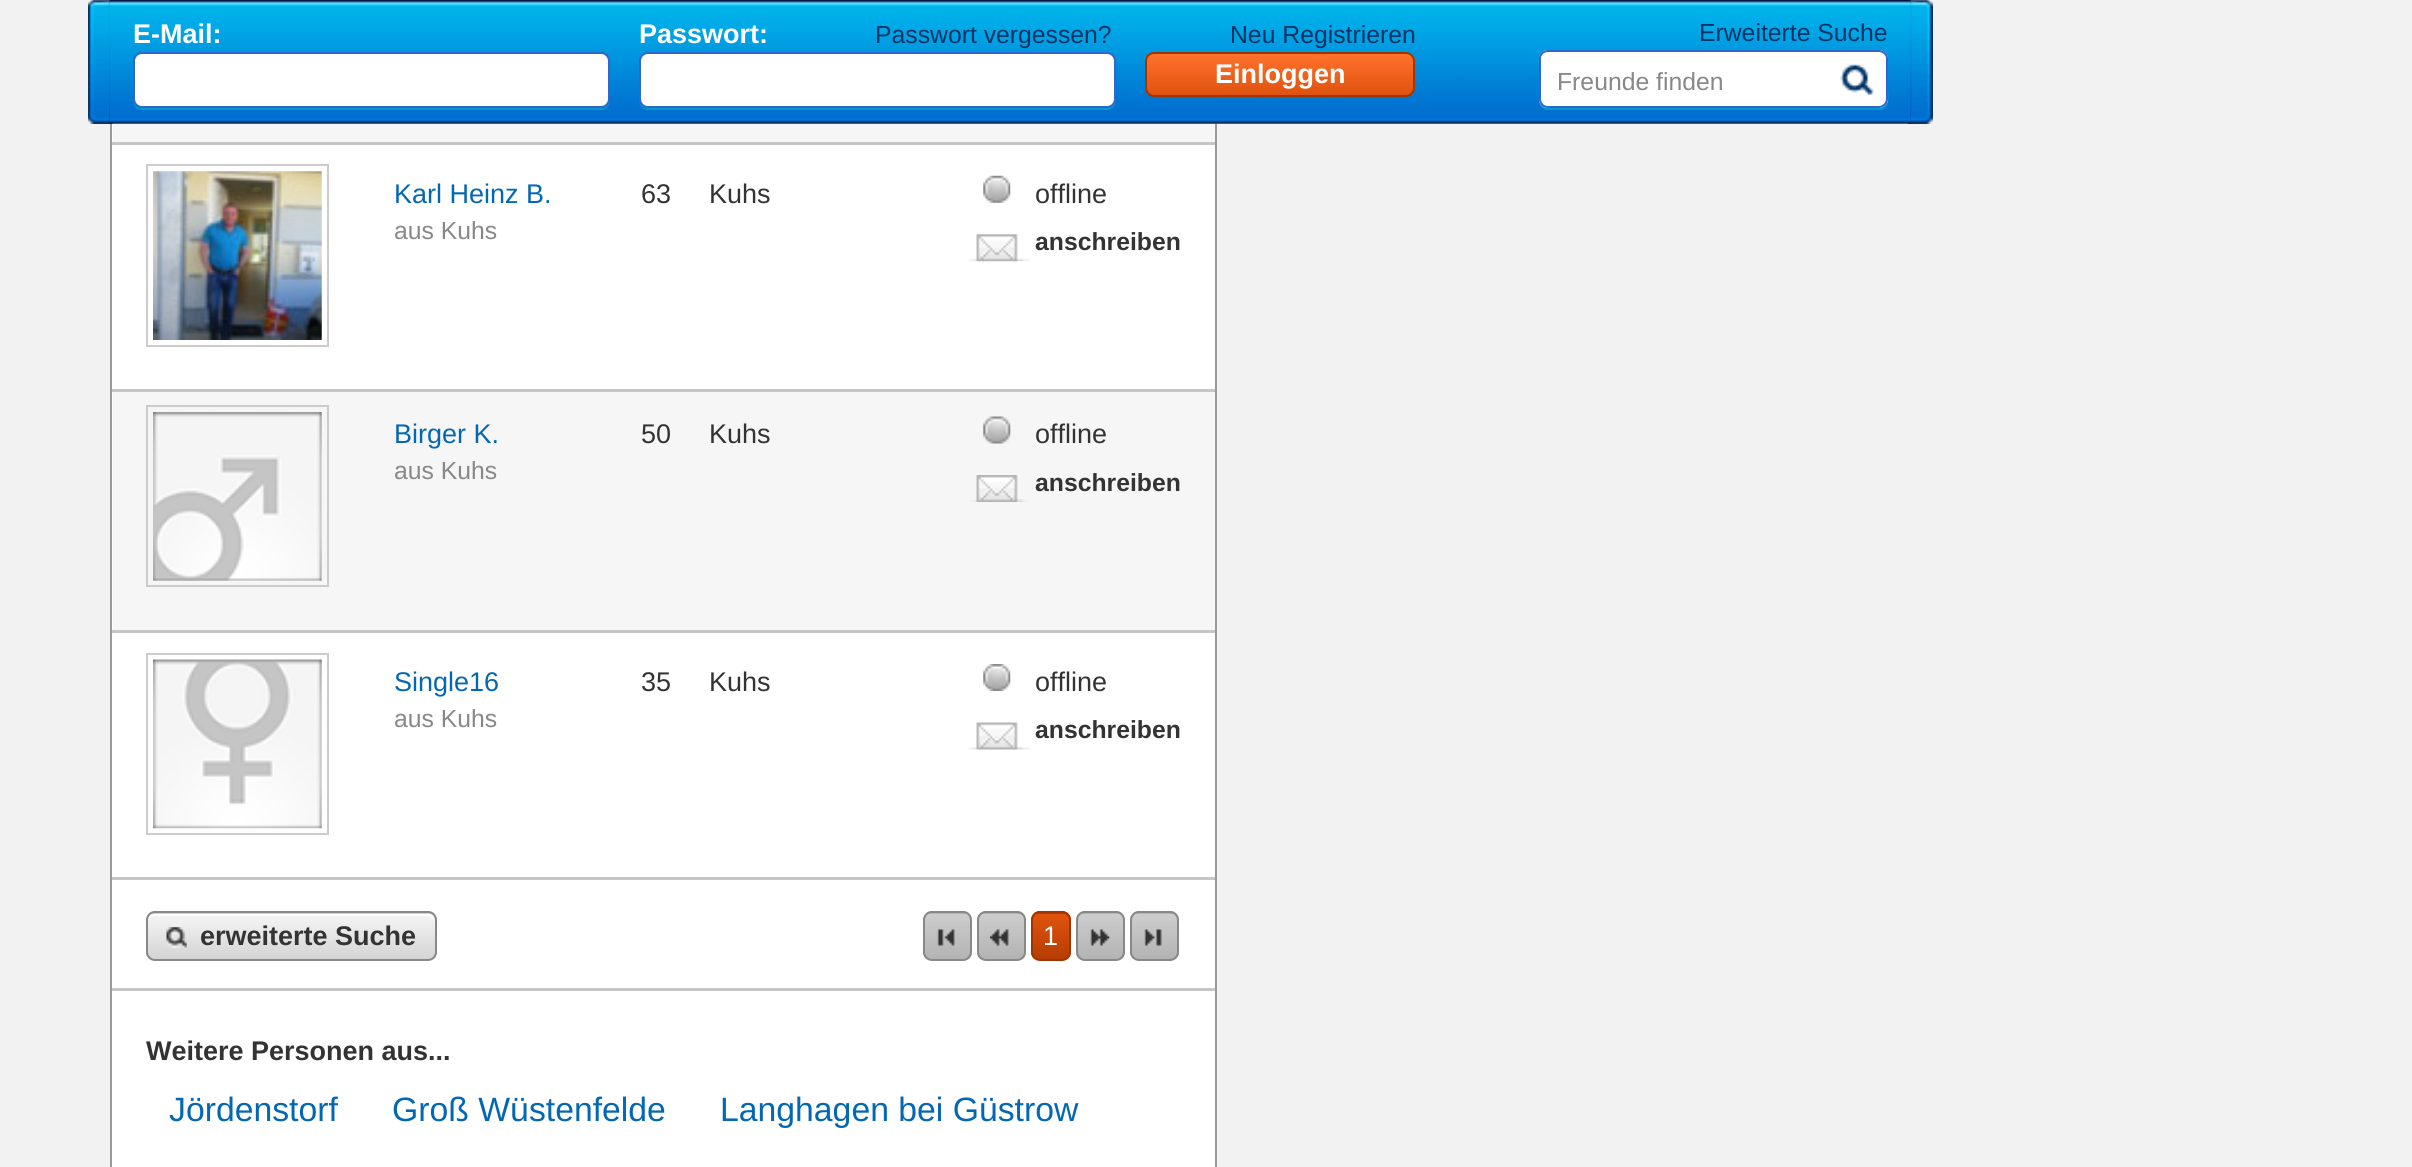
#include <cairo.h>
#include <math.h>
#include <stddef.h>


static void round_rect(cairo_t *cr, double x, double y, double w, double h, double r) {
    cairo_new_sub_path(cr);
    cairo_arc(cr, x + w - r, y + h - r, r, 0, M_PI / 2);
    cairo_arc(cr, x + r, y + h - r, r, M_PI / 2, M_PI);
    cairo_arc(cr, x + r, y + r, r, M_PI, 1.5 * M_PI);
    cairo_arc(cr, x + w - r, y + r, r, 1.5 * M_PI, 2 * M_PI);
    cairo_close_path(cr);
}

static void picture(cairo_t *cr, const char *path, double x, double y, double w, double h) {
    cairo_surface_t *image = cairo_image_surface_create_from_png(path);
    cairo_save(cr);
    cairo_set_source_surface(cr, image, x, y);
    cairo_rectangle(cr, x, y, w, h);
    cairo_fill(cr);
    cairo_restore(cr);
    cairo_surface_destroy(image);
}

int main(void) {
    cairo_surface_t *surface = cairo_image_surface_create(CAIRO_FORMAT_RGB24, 2412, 1167);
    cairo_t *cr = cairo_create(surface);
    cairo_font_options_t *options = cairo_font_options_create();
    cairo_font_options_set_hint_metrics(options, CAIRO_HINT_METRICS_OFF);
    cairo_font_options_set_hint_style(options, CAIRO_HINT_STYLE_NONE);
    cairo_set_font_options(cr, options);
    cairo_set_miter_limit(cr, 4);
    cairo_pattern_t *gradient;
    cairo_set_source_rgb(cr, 0.949, 0.949, 0.949);
    cairo_paint(cr);
    cairo_set_source_rgb(cr, 1, 1, 1);
    cairo_rectangle(cr, 112, 123, 1103, 1044);
    cairo_fill(cr);
    cairo_rectangle(cr, 111, -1, 1105, 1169);
    cairo_set_source_rgb(cr, 0.6, 0.6, 0.6);
    cairo_stroke(cr);
    cairo_set_source_rgb(cr, 0.961, 0.961, 0.961);
    cairo_rectangle(cr, 113, 123, 1102, 19);
    cairo_fill(cr);
    picture(cr, "img1.png", 88, 0, 1845, 124);
    picture(cr, "img2.png", 110, 0, 1800, 124);
    cairo_select_font_face(cr, "Liberation Sans", CAIRO_FONT_SLANT_NORMAL, CAIRO_FONT_WEIGHT_BOLD);
    cairo_set_font_size(cr, 27);
    cairo_set_source_rgb(cr, 1, 1, 1);
    cairo_move_to(cr, 133, 43);
    cairo_show_text(cr, "E-Mail:");
    cairo_set_source_rgb(cr, 0, 0.6, 0.8);
    cairo_new_path(cr);
    cairo_move_to(cr, 133, 101);
    cairo_curve_to(cr, 133, 106, 137, 110, 142, 110);
    cairo_line_to(cr, 601, 110);
    cairo_curve_to(cr, 606, 110, 610, 106, 610, 101);
    cairo_line_to(cr, 610, 61);
    cairo_line_to(cr, 610, 99);
    cairo_curve_to(cr, 610, 104, 606, 108, 601, 108);
    cairo_line_to(cr, 142, 108);
    cairo_curve_to(cr, 138, 108, 134, 105, 133, 101);
    cairo_close_path(cr);
    cairo_fill(cr);
    cairo_set_source_rgb(cr, 1, 1, 1);
    round_rect(cr, 134, 53, 475, 54, 8);
    cairo_fill_preserve(cr);
    cairo_set_source_rgb(cr, 0.2, 0.4, 0.8);
    cairo_stroke(cr);
    cairo_set_source_rgb(cr, 1, 1, 1);
    cairo_move_to(cr, 639, 43);
    cairo_show_text(cr, "Passwort:");
    cairo_select_font_face(cr, "Liberation Sans", CAIRO_FONT_SLANT_NORMAL, CAIRO_FONT_WEIGHT_NORMAL);
    cairo_set_font_size(cr, 24.75);
    cairo_set_source_rgb(cr, 0, 0.2, 0.4);
    cairo_move_to(cr, 875, 43);
    cairo_show_text(cr, "Passwort vergessen?");
    cairo_set_source_rgb(cr, 0, 0.6, 0.8);
    cairo_new_path(cr);
    cairo_move_to(cr, 639, 99);
    cairo_curve_to(cr, 639, 105, 642, 110, 648, 110);
    cairo_line_to(cr, 1107, 110);
    cairo_curve_to(cr, 1113, 110, 1116, 105, 1116, 99);
    cairo_curve_to(cr, 1116, 104, 1112, 108, 1107, 108);
    cairo_line_to(cr, 648, 108);
    cairo_curve_to(cr, 643, 108, 639, 104, 639, 99);
    cairo_close_path(cr);
    cairo_fill(cr);
    cairo_set_source_rgb(cr, 1, 1, 1);
    round_rect(cr, 640, 53, 475, 54, 8);
    cairo_fill_preserve(cr);
    cairo_set_source_rgb(cr, 0.2, 0.4, 0.8);
    cairo_stroke(cr);
    cairo_set_source_rgb(cr, 0, 0.2, 0.4);
    cairo_move_to(cr, 1230, 43);
    cairo_show_text(cr, "Neu Registrieren");
    cairo_save(cr);
    round_rect(cr, 1145, 52, 270, 45, 9);
    cairo_clip(cr);
    gradient = cairo_pattern_create_linear(1148, 54, 1148, 95);
    cairo_pattern_add_color_stop_rgba(gradient, 0.05, 1, 0.439, 0.165, 1);
    cairo_pattern_add_color_stop_rgba(gradient, 1, 0.871, 0.325, 0.055, 1);
    cairo_set_source(cr, gradient);
    cairo_pattern_destroy(gradient);
    cairo_rectangle(cr, 1145, 54, 270, 41);
    cairo_fill(cr);
    cairo_restore(cr);
    round_rect(cr, 1146, 53, 268, 43, 8);
    cairo_set_source_rgb(cr, 0.624, 0.212, 0.008);
    cairo_stroke(cr);
    cairo_select_font_face(cr, "Liberation Sans", CAIRO_FONT_SLANT_NORMAL, CAIRO_FONT_WEIGHT_BOLD);
    cairo_set_font_size(cr, 27);
    cairo_set_source_rgb(cr, 1, 1, 1);
    cairo_move_to(cr, 1215, 83);
    cairo_show_text(cr, "Einloggen");
    cairo_select_font_face(cr, "Liberation Sans", CAIRO_FONT_SLANT_NORMAL, CAIRO_FONT_WEIGHT_NORMAL);
    cairo_set_font_size(cr, 24.75);
    cairo_set_source_rgb(cr, 0, 0.2, 0.4);
    cairo_move_to(cr, 1699, 41);
    cairo_show_text(cr, "Erweiterte Suche");
    cairo_set_source_rgb(cr, 0, 0.6, 0.8);
    cairo_new_path(cr);
    cairo_move_to(cr, 1539, 99);
    cairo_line_to(cr, 1539, 101);
    cairo_curve_to(cr, 1539, 106, 1543, 110, 1548, 110);
    cairo_line_to(cr, 1829, 110);
    cairo_line_to(cr, 1829, 108);
    cairo_line_to(cr, 1548, 108);
    cairo_curve_to(cr, 1543, 108, 1539, 104, 1539, 99);
    cairo_close_path(cr);
    cairo_fill(cr);
    cairo_set_source_rgb(cr, 1, 1, 1);
    cairo_new_path(cr);
    cairo_move_to(cr, 1548, 50);
    cairo_line_to(cr, 1829, 50);
    cairo_line_to(cr, 1829, 108);
    cairo_line_to(cr, 1548, 108);
    cairo_curve_to(cr, 1543, 108, 1539, 104, 1539, 99);
    cairo_line_to(cr, 1539, 59);
    cairo_curve_to(cr, 1539, 54, 1543, 50, 1548, 50);
    cairo_close_path(cr);
    cairo_fill(cr);
    cairo_set_source_rgb(cr, 0.2, 0.4, 0.8);
    cairo_set_fill_rule(cr, CAIRO_FILL_RULE_EVEN_ODD);
    cairo_new_path(cr);
    cairo_move_to(cr, 1548, 50);
    cairo_line_to(cr, 1829, 50);
    cairo_line_to(cr, 1829, 108);
    cairo_line_to(cr, 1548, 108);
    cairo_curve_to(cr, 1543, 108, 1539, 104, 1539, 99);
    cairo_line_to(cr, 1539, 58);
    cairo_curve_to(cr, 1539, 54, 1543, 50, 1548, 50);
    cairo_close_path(cr);
    cairo_move_to(cr, 1548, 52);
    cairo_line_to(cr, 1829, 52);
    cairo_line_to(cr, 1829, 106);
    cairo_line_to(cr, 1548, 106);
    cairo_curve_to(cr, 1544, 106, 1541, 103, 1541, 99);
    cairo_line_to(cr, 1541, 58);
    cairo_curve_to(cr, 1541, 55, 1544, 52, 1548, 52);
    cairo_close_path(cr);
    cairo_fill(cr);
    cairo_set_source_rgb(cr, 0.533, 0.533, 0.533);
    cairo_move_to(cr, 1557, 90);
    cairo_show_text(cr, "Freunde finden");
    cairo_set_source_rgb(cr, 0, 0.6, 0.8);
    cairo_set_fill_rule(cr, CAIRO_FILL_RULE_WINDING);
    cairo_new_path(cr);
    cairo_move_to(cr, 1829, 52);
    cairo_line_to(cr, 1829, 110);
    cairo_line_to(cr, 1881, 110);
    cairo_curve_to(cr, 1891, 108, 1888, 95, 1888, 88);
    cairo_line_to(cr, 1888, 59);
    cairo_line_to(cr, 1888, 99);
    cairo_curve_to(cr, 1888, 104, 1884, 108, 1879, 108);
    cairo_line_to(cr, 1829, 108);
    cairo_close_path(cr);
    cairo_fill(cr);
    cairo_set_source_rgb(cr, 1, 1, 1);
    cairo_new_path(cr);
    cairo_move_to(cr, 1829, 50);
    cairo_line_to(cr, 1879, 50);
    cairo_curve_to(cr, 1884, 50, 1888, 54, 1888, 59);
    cairo_line_to(cr, 1888, 99);
    cairo_curve_to(cr, 1888, 104, 1884, 108, 1879, 108);
    cairo_line_to(cr, 1829, 108);
    cairo_close_path(cr);
    cairo_fill(cr);
    cairo_set_source_rgb(cr, 0.2, 0.4, 0.8);
    cairo_set_fill_rule(cr, CAIRO_FILL_RULE_EVEN_ODD);
    cairo_new_path(cr);
    cairo_move_to(cr, 1829, 50);
    cairo_line_to(cr, 1879, 50);
    cairo_curve_to(cr, 1884, 50, 1888, 54, 1888, 58);
    cairo_line_to(cr, 1888, 99);
    cairo_curve_to(cr, 1888, 104, 1884, 108, 1879, 108);
    cairo_line_to(cr, 1829, 108);
    cairo_close_path(cr);
    cairo_move_to(cr, 1829, 52);
    cairo_line_to(cr, 1879, 52);
    cairo_curve_to(cr, 1882, 52, 1886, 55, 1886, 58);
    cairo_line_to(cr, 1886, 99);
    cairo_curve_to(cr, 1886, 103, 1882, 106, 1879, 106);
    cairo_line_to(cr, 1829, 106);
    cairo_close_path(cr);
    cairo_fill(cr);
    picture(cr, "img3.png", 1840, 64, 35, 32);
    cairo_set_source_rgb(cr, 0.773, 0.78, 0.776);
    cairo_rectangle(cr, 112, 142, 1103, 3);
    cairo_fill(cr);
    cairo_rectangle(cr, 147, 165, 181, 181);
    cairo_set_source_rgb(cr, 0.8, 0.8, 0.8);
    cairo_stroke(cr);
    picture(cr, "img4.png", 153, 171, 169, 169);
    cairo_set_font_size(cr, 27);
    cairo_set_source_rgb(cr, 0.016, 0.404, 0.698);
    cairo_move_to(cr, 394, 203);
    cairo_show_text(cr, "Karl Heinz B.");
    cairo_set_font_size(cr, 24.75);
    cairo_set_source_rgb(cr, 0.533, 0.533, 0.533);
    cairo_move_to(cr, 394, 239);
    cairo_show_text(cr, "aus Kuhs");
    cairo_set_font_size(cr, 27);
    cairo_set_source_rgb(cr, 0.2, 0.2, 0.2);
    cairo_move_to(cr, 641, 203);
    cairo_show_text(cr, "63");
    cairo_move_to(cr, 709, 203);
    cairo_show_text(cr, "Kuhs");
    picture(cr, "img5.png", 983, 175, 28, 28);
    cairo_move_to(cr, 1035, 203);
    cairo_show_text(cr, "offline");
    picture(cr, "img6.png", 967, 234, 64, 28);
    cairo_select_font_face(cr, "Liberation Sans", CAIRO_FONT_SLANT_NORMAL, CAIRO_FONT_WEIGHT_BOLD);
    cairo_set_font_size(cr, 24.75);
    cairo_move_to(cr, 1035, 250);
    cairo_show_text(cr, "anschreiben");
    cairo_set_source_rgb(cr, 0.961, 0.961, 0.961);
    cairo_rectangle(cr, 113, 392, 1102, 238);
    cairo_fill(cr);
    cairo_set_source_rgb(cr, 0.773, 0.78, 0.776);
    cairo_rectangle(cr, 112, 389, 1103, 3);
    cairo_fill(cr);
    cairo_rectangle(cr, 147, 406, 181, 180);
    cairo_set_source_rgb(cr, 0.8, 0.8, 0.8);
    cairo_stroke(cr);
    picture(cr, "img7.png", 153, 412, 169, 169);
    cairo_select_font_face(cr, "Liberation Sans", CAIRO_FONT_SLANT_NORMAL, CAIRO_FONT_WEIGHT_NORMAL);
    cairo_set_font_size(cr, 27);
    cairo_set_source_rgb(cr, 0.016, 0.404, 0.698);
    cairo_move_to(cr, 394, 443);
    cairo_show_text(cr, "Birger K.");
    cairo_set_font_size(cr, 24.75);
    cairo_set_source_rgb(cr, 0.533, 0.533, 0.533);
    cairo_move_to(cr, 394, 479);
    cairo_show_text(cr, "aus Kuhs");
    cairo_set_font_size(cr, 27);
    cairo_set_source_rgb(cr, 0.2, 0.2, 0.2);
    cairo_move_to(cr, 641, 443);
    cairo_show_text(cr, "50");
    cairo_move_to(cr, 709, 443);
    cairo_show_text(cr, "Kuhs");
    picture(cr, "img8.png", 983, 416, 28, 28);
    cairo_move_to(cr, 1035, 443);
    cairo_show_text(cr, "offline");
    picture(cr, "img9.png", 970, 475, 58, 27);
    cairo_select_font_face(cr, "Liberation Sans", CAIRO_FONT_SLANT_NORMAL, CAIRO_FONT_WEIGHT_BOLD);
    cairo_set_font_size(cr, 24.75);
    cairo_move_to(cr, 1035, 491);
    cairo_show_text(cr, "anschreiben");
    cairo_set_source_rgb(cr, 0.773, 0.78, 0.776);
    cairo_rectangle(cr, 112, 630, 1103, 3);
    cairo_fill(cr);
    cairo_rectangle(cr, 147, 654, 181, 180);
    cairo_set_source_rgb(cr, 0.8, 0.8, 0.8);
    cairo_stroke(cr);
    picture(cr, "img10.png", 153, 659, 169, 170);
    cairo_select_font_face(cr, "Liberation Sans", CAIRO_FONT_SLANT_NORMAL, CAIRO_FONT_WEIGHT_NORMAL);
    cairo_set_font_size(cr, 27);
    cairo_set_source_rgb(cr, 0.016, 0.404, 0.698);
    cairo_move_to(cr, 394, 691);
    cairo_show_text(cr, "Single16");
    cairo_set_font_size(cr, 24.75);
    cairo_set_source_rgb(cr, 0.533, 0.533, 0.533);
    cairo_move_to(cr, 394, 727);
    cairo_show_text(cr, "aus Kuhs");
    cairo_set_font_size(cr, 27);
    cairo_set_source_rgb(cr, 0.2, 0.2, 0.2);
    cairo_move_to(cr, 641, 691);
    cairo_show_text(cr, "35");
    cairo_move_to(cr, 709, 691);
    cairo_show_text(cr, "Kuhs");
    picture(cr, "img11.png", 983, 664, 28, 27);
    cairo_move_to(cr, 1035, 691);
    cairo_show_text(cr, "offline");
    picture(cr, "img12.png", 967, 722, 64, 28);
    cairo_select_font_face(cr, "Liberation Sans", CAIRO_FONT_SLANT_NORMAL, CAIRO_FONT_WEIGHT_BOLD);
    cairo_set_font_size(cr, 24.75);
    cairo_move_to(cr, 1035, 738);
    cairo_show_text(cr, "anschreiben");
    cairo_set_source_rgb(cr, 0.773, 0.78, 0.776);
    cairo_rectangle(cr, 112, 877, 1103, 3);
    cairo_fill(cr);
    cairo_save(cr);
    cairo_set_fill_rule(cr, CAIRO_FILL_RULE_WINDING);
    round_rect(cr, 146, 911, 291, 50, 9);
    cairo_clip(cr);
    gradient = cairo_pattern_create_linear(149, 869, 149, 914);
    cairo_pattern_add_color_stop_rgba(gradient, 0.05, 0.957, 0.957, 0.957, 1);
    cairo_pattern_add_color_stop_rgba(gradient, 1, 0.831, 0.831, 0.831, 1);
    cairo_set_source(cr, gradient);
    cairo_pattern_destroy(gradient);
    cairo_rectangle(cr, 146, 911, 291, 3);
    cairo_fill(cr);
    gradient = cairo_pattern_create_linear(149, 914, 149, 959);
    cairo_pattern_add_color_stop_rgba(gradient, 0.05, 0.957, 0.957, 0.957, 1);
    cairo_pattern_add_color_stop_rgba(gradient, 1, 0.831, 0.831, 0.831, 1);
    cairo_set_source(cr, gradient);
    cairo_pattern_destroy(gradient);
    cairo_rectangle(cr, 146, 914, 291, 45);
    cairo_fill(cr);
    cairo_restore(cr);
    cairo_set_source_rgb(cr, 1, 1, 1);
    cairo_set_fill_rule(cr, CAIRO_FILL_RULE_WINDING);
    cairo_new_path(cr);
    cairo_move_to(cr, 155, 916);
    cairo_line_to(cr, 428, 916);
    cairo_curve_to(cr, 431, 916, 434, 919, 434, 922);
    cairo_line_to(cr, 434, 921);
    cairo_curve_to(cr, 434, 917, 431, 914, 427, 914);
    cairo_line_to(cr, 156, 914);
    cairo_curve_to(cr, 153, 914, 150, 916, 149, 919);
    cairo_curve_to(cr, 151, 917, 153, 916, 155, 916);
    cairo_close_path(cr);
    cairo_fill(cr);
    round_rect(cr, 147, 912, 289, 48, 8);
    cairo_set_source_rgb(cr, 0.533, 0.533, 0.533);
    cairo_stroke(cr);
    picture(cr, "img13.png", 166, 927, 21, 21);
    cairo_set_font_size(cr, 27);
    cairo_set_source_rgb(cr, 0.2, 0.2, 0.2);
    cairo_move_to(cr, 200, 945);
    cairo_show_text(cr, "erweiterte Suche");
    cairo_save(cr);
    round_rect(cr, 923, 911, 49, 50, 9);
    cairo_clip(cr);
    gradient = cairo_pattern_create_linear(925, 869, 925, 914);
    cairo_pattern_add_color_stop_rgba(gradient, 0.05, 0.8, 0.8, 0.8, 1);
    cairo_pattern_add_color_stop_rgba(gradient, 1, 0.702, 0.702, 0.702, 1);
    cairo_set_source(cr, gradient);
    cairo_pattern_destroy(gradient);
    cairo_rectangle(cr, 923, 911, 49, 3);
    cairo_fill(cr);
    gradient = cairo_pattern_create_linear(925, 914, 925, 959);
    cairo_pattern_add_color_stop_rgba(gradient, 0.05, 0.8, 0.8, 0.8, 1);
    cairo_pattern_add_color_stop_rgba(gradient, 1, 0.702, 0.702, 0.702, 1);
    cairo_set_source(cr, gradient);
    cairo_pattern_destroy(gradient);
    cairo_rectangle(cr, 923, 914, 49, 45);
    cairo_fill(cr);
    cairo_restore(cr);
    round_rect(cr, 924, 912, 47, 48, 8);
    cairo_set_source_rgb(cr, 0.533, 0.533, 0.533);
    cairo_stroke(cr);
    picture(cr, "img14.png", 937, 929, 18, 17);
    cairo_save(cr);
    round_rect(cr, 977, 911, 49, 50, 9);
    cairo_clip(cr);
    gradient = cairo_pattern_create_linear(979, 869, 979, 914);
    cairo_pattern_add_color_stop_rgba(gradient, 0.05, 0.8, 0.8, 0.8, 1);
    cairo_pattern_add_color_stop_rgba(gradient, 1, 0.702, 0.702, 0.702, 1);
    cairo_set_source(cr, gradient);
    cairo_pattern_destroy(gradient);
    cairo_rectangle(cr, 977, 911, 49, 3);
    cairo_fill(cr);
    gradient = cairo_pattern_create_linear(979, 914, 979, 959);
    cairo_pattern_add_color_stop_rgba(gradient, 0.05, 0.8, 0.8, 0.8, 1);
    cairo_pattern_add_color_stop_rgba(gradient, 1, 0.702, 0.702, 0.702, 1);
    cairo_set_source(cr, gradient);
    cairo_pattern_destroy(gradient);
    cairo_rectangle(cr, 977, 914, 49, 45);
    cairo_fill(cr);
    cairo_restore(cr);
    round_rect(cr, 978, 912, 47, 48, 8);
    cairo_stroke(cr);
    picture(cr, "img15.png", 990, 929, 19, 17);
    cairo_save(cr);
    round_rect(cr, 1031, 911, 40, 50, 9);
    cairo_clip(cr);
    gradient = cairo_pattern_create_linear(1033, 869, 1033, 914);
    cairo_pattern_add_color_stop_rgba(gradient, 0.05, 0.871, 0.322, 0.055, 1);
    cairo_pattern_add_color_stop_rgba(gradient, 1, 0.714, 0.239, 0.008, 1);
    cairo_set_source(cr, gradient);
    cairo_pattern_destroy(gradient);
    cairo_rectangle(cr, 1031, 911, 40, 3);
    cairo_fill(cr);
    gradient = cairo_pattern_create_linear(1033, 914, 1033, 959);
    cairo_pattern_add_color_stop_rgba(gradient, 0.05, 0.871, 0.322, 0.055, 1);
    cairo_pattern_add_color_stop_rgba(gradient, 1, 0.714, 0.239, 0.008, 1);
    cairo_set_source(cr, gradient);
    cairo_pattern_destroy(gradient);
    cairo_rectangle(cr, 1031, 914, 40, 45);
    cairo_fill(cr);
    cairo_restore(cr);
    round_rect(cr, 1032, 912, 38, 48, 8);
    cairo_set_source_rgb(cr, 0.624, 0.212, 0.008);
    cairo_stroke(cr);
    cairo_select_font_face(cr, "Liberation Sans", CAIRO_FONT_SLANT_NORMAL, CAIRO_FONT_WEIGHT_NORMAL);
    cairo_set_source_rgb(cr, 1, 1, 1);
    cairo_move_to(cr, 1043, 945);
    cairo_show_text(cr, "1");
    cairo_save(cr);
    round_rect(cr, 1076, 911, 49, 50, 9);
    cairo_clip(cr);
    gradient = cairo_pattern_create_linear(1078, 869, 1078, 914);
    cairo_pattern_add_color_stop_rgba(gradient, 0.05, 0.8, 0.8, 0.8, 1);
    cairo_pattern_add_color_stop_rgba(gradient, 1, 0.702, 0.702, 0.702, 1);
    cairo_set_source(cr, gradient);
    cairo_pattern_destroy(gradient);
    cairo_rectangle(cr, 1076, 911, 49, 3);
    cairo_fill(cr);
    gradient = cairo_pattern_create_linear(1078, 914, 1078, 959);
    cairo_pattern_add_color_stop_rgba(gradient, 0.05, 0.8, 0.8, 0.8, 1);
    cairo_pattern_add_color_stop_rgba(gradient, 1, 0.702, 0.702, 0.702, 1);
    cairo_set_source(cr, gradient);
    cairo_pattern_destroy(gradient);
    cairo_rectangle(cr, 1076, 914, 49, 45);
    cairo_fill(cr);
    cairo_restore(cr);
    round_rect(cr, 1077, 912, 47, 48, 8);
    cairo_set_source_rgb(cr, 0.533, 0.533, 0.533);
    cairo_stroke(cr);
    picture(cr, "img16.png", 1090, 929, 20, 17);
    cairo_save(cr);
    round_rect(cr, 1130, 911, 49, 50, 9);
    cairo_clip(cr);
    gradient = cairo_pattern_create_linear(1132, 869, 1132, 914);
    cairo_pattern_add_color_stop_rgba(gradient, 0.05, 0.8, 0.8, 0.8, 1);
    cairo_pattern_add_color_stop_rgba(gradient, 1, 0.702, 0.702, 0.702, 1);
    cairo_set_source(cr, gradient);
    cairo_pattern_destroy(gradient);
    cairo_rectangle(cr, 1130, 911, 49, 3);
    cairo_fill(cr);
    gradient = cairo_pattern_create_linear(1132, 914, 1132, 959);
    cairo_pattern_add_color_stop_rgba(gradient, 0.05, 0.8, 0.8, 0.8, 1);
    cairo_pattern_add_color_stop_rgba(gradient, 1, 0.702, 0.702, 0.702, 1);
    cairo_set_source(cr, gradient);
    cairo_pattern_destroy(gradient);
    cairo_rectangle(cr, 1130, 914, 49, 45);
    cairo_fill(cr);
    cairo_restore(cr);
    round_rect(cr, 1131, 912, 47, 48, 8);
    cairo_stroke(cr);
    picture(cr, "img17.png", 1144, 929, 18, 17);
    cairo_set_source_rgb(cr, 0.773, 0.78, 0.776);
    cairo_rectangle(cr, 112, 988, 1103, 3);
    cairo_fill(cr);
    cairo_select_font_face(cr, "Liberation Sans", CAIRO_FONT_SLANT_NORMAL, CAIRO_FONT_WEIGHT_BOLD);
    cairo_set_source_rgb(cr, 0.2, 0.2, 0.2);
    cairo_move_to(cr, 146, 1060);
    cairo_show_text(cr, "Weitere Personen aus...");
    cairo_select_font_face(cr, "Liberation Sans", CAIRO_FONT_SLANT_NORMAL, CAIRO_FONT_WEIGHT_NORMAL);
    cairo_set_font_size(cr, 33.75);
    cairo_set_source_rgb(cr, 0.016, 0.404, 0.698);
    cairo_move_to(cr, 169, 1121);
    cairo_show_text(cr, "Jördenstorf");
    cairo_move_to(cr, 392, 1121);
    cairo_show_text(cr, "Groß Wüstenfelde");
    cairo_move_to(cr, 720, 1121);
    cairo_show_text(cr, "Langhagen bei Güstrow");
    cairo_surface_write_to_png(surface, "page.png");
    cairo_font_options_destroy(options);
    cairo_destroy(cr);
    cairo_surface_destroy(surface);
    return 0;
}
